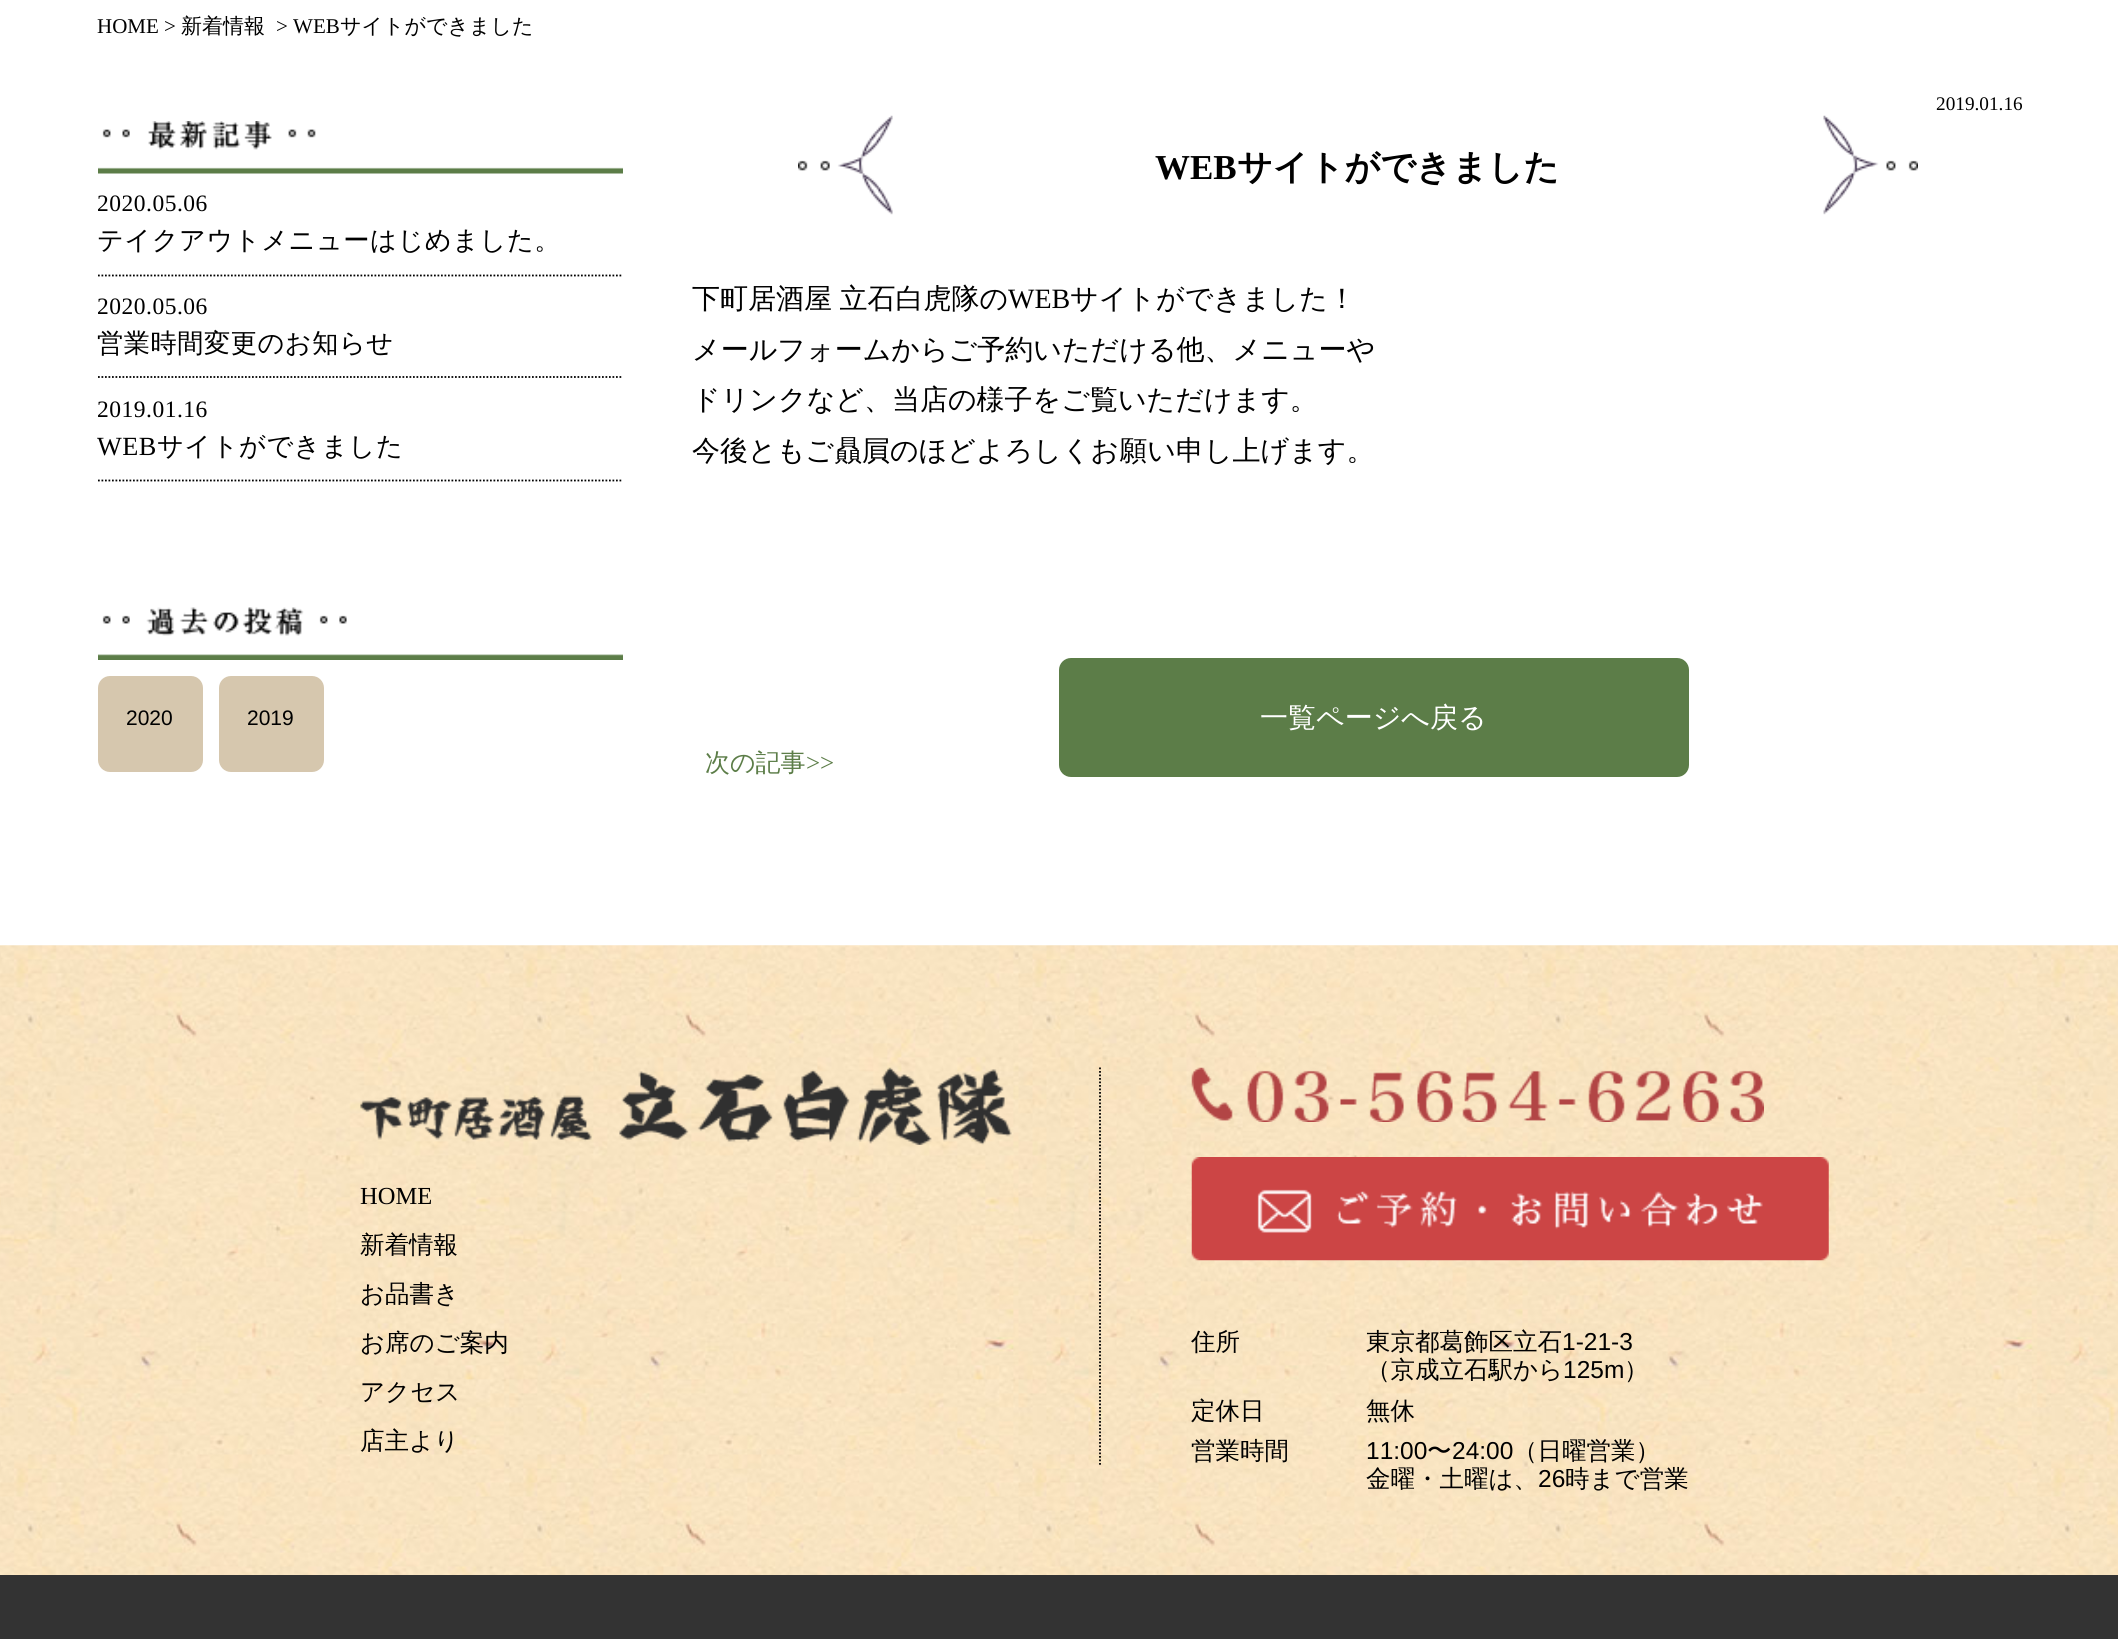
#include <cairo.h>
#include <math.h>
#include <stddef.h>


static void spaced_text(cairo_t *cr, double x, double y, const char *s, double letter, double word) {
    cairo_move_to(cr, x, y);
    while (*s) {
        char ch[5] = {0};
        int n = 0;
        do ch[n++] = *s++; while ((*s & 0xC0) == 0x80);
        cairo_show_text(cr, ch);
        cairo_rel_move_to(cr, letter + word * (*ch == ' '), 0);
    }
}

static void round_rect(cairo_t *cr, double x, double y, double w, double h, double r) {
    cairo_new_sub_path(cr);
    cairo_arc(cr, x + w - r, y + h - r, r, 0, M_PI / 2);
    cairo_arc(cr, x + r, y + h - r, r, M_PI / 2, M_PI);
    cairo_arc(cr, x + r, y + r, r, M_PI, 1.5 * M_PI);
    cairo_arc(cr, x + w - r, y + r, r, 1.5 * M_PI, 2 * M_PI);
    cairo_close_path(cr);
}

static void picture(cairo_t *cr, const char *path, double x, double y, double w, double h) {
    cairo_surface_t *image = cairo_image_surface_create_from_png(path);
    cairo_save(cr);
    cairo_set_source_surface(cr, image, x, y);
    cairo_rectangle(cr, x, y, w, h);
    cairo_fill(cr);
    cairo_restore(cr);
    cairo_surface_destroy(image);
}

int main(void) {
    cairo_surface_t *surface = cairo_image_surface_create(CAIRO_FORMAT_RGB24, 2118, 1639);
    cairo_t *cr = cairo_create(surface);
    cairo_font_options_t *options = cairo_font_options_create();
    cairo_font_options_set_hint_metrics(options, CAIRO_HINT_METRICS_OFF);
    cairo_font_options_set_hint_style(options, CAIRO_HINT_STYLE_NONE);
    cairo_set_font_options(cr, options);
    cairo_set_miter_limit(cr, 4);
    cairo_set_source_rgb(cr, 1, 1, 1);
    cairo_paint(cr);
    cairo_select_font_face(cr, "Liberation Serif", CAIRO_FONT_SLANT_NORMAL, CAIRO_FONT_WEIGHT_NORMAL);
    cairo_set_font_size(cr, 21);
    cairo_set_source_rgb(cr, 0, 0, 0);
    cairo_move_to(cr, 97, 33);
    cairo_show_text(cr, "HOME >");
    cairo_select_font_face(cr, "WenQuanYi Zen Hei Medium", CAIRO_FONT_SLANT_NORMAL, CAIRO_FONT_WEIGHT_NORMAL);
    cairo_move_to(cr, 181, 33);
    cairo_show_text(cr, "新着情報");
    cairo_select_font_face(cr, "Liberation Serif", CAIRO_FONT_SLANT_NORMAL, CAIRO_FONT_WEIGHT_NORMAL);
    cairo_move_to(cr, 276, 33);
    cairo_show_text(cr, "> WEB");
    cairo_select_font_face(cr, "WenQuanYi Zen Hei Medium", CAIRO_FONT_SLANT_NORMAL, CAIRO_FONT_WEIGHT_NORMAL);
    cairo_move_to(cr, 340, 33);
    cairo_show_text(cr, "サイトができました");
    picture(cr, "img1.png", 98, 121, 525, 53);
    cairo_new_path(cr);
    cairo_move_to(cr, 98, 275.5);
    cairo_line_to(cr, 623, 275.5);
    cairo_set_line_width(cr, 1.8);
    cairo_set_dash(cr, (double[]){1.75, 1.75}, 2, 0);
    cairo_stroke(cr);
    cairo_select_font_face(cr, "Liberation Serif", CAIRO_FONT_SLANT_NORMAL, CAIRO_FONT_WEIGHT_NORMAL);
    cairo_set_font_size(cr, 23.5);
    spaced_text(cr, 97, 211, "2020.05.06", 0.5, 0);
    cairo_select_font_face(cr, "WenQuanYi Zen Hei Medium", CAIRO_FONT_SLANT_NORMAL, CAIRO_FONT_WEIGHT_NORMAL);
    cairo_set_font_size(cr, 26.25);
    spaced_text(cr, 97, 249, "テイクアウトメニューはじめました。", 0.5, 0);
    cairo_new_path(cr);
    cairo_move_to(cr, 98, 377);
    cairo_line_to(cr, 623, 377);
    cairo_stroke(cr);
    cairo_select_font_face(cr, "Liberation Serif", CAIRO_FONT_SLANT_NORMAL, CAIRO_FONT_WEIGHT_NORMAL);
    cairo_set_font_size(cr, 23.5);
    spaced_text(cr, 97, 314, "2020.05.06", 0.5, 0);
    cairo_select_font_face(cr, "WenQuanYi Zen Hei Medium", CAIRO_FONT_SLANT_NORMAL, CAIRO_FONT_WEIGHT_NORMAL);
    cairo_set_font_size(cr, 26.25);
    spaced_text(cr, 97, 352, "営業時間変更のお知らせ", 0.5, 0);
    cairo_new_path(cr);
    cairo_move_to(cr, 98, 480.5);
    cairo_line_to(cr, 623, 480.5);
    cairo_stroke(cr);
    cairo_select_font_face(cr, "Liberation Serif", CAIRO_FONT_SLANT_NORMAL, CAIRO_FONT_WEIGHT_NORMAL);
    cairo_set_font_size(cr, 23.5);
    spaced_text(cr, 97, 417, "2019.01.16", 0.5, 0);
    cairo_set_font_size(cr, 26.25);
    spaced_text(cr, 97, 455, "WEB", 0.5, 0);
    cairo_select_font_face(cr, "WenQuanYi Zen Hei Medium", CAIRO_FONT_SLANT_NORMAL, CAIRO_FONT_WEIGHT_NORMAL);
    spaced_text(cr, 157, 455, "サイトができました", 0.5, 0);
    picture(cr, "img2.png", 98, 607, 525, 53);
    cairo_set_source_rgb(cr, 0.839, 0.78, 0.682);
    round_rect(cr, 98, 676, 105, 96, 12);
    cairo_fill(cr);
    cairo_select_font_face(cr, "Liberation Sans", CAIRO_FONT_SLANT_NORMAL, CAIRO_FONT_WEIGHT_NORMAL);
    cairo_set_font_size(cr, 21);
    cairo_set_source_rgb(cr, 0, 0, 0);
    cairo_move_to(cr, 126, 725);
    cairo_show_text(cr, "2020");
    cairo_set_source_rgb(cr, 0.839, 0.78, 0.682);
    round_rect(cr, 219, 676, 105, 96, 12);
    cairo_fill(cr);
    cairo_set_source_rgb(cr, 0, 0, 0);
    cairo_move_to(cr, 247, 725);
    cairo_show_text(cr, "2019");
    cairo_select_font_face(cr, "Liberation Serif", CAIRO_FONT_SLANT_NORMAL, CAIRO_FONT_WEIGHT_NORMAL);
    cairo_set_font_size(cr, 19.25);
    cairo_move_to(cr, 1936, 110);
    cairo_show_text(cr, "2019.01.16");
    picture(cr, "img3.png", 798, 115, 1120, 100);
    cairo_select_font_face(cr, "Liberation Serif", CAIRO_FONT_SLANT_NORMAL, CAIRO_FONT_WEIGHT_BOLD);
    cairo_set_font_size(cr, 35);
    cairo_move_to(cr, 1155, 179);
    cairo_show_text(cr, "WEB");
    cairo_select_font_face(cr, "WenQuanYi Zen Hei", CAIRO_FONT_SLANT_NORMAL, CAIRO_FONT_WEIGHT_BOLD);
    cairo_move_to(cr, 1237, 179);
    cairo_show_text(cr, "サイトができました");
    cairo_select_font_face(cr, "WenQuanYi Zen Hei Medium", CAIRO_FONT_SLANT_NORMAL, CAIRO_FONT_WEIGHT_NORMAL);
    cairo_set_font_size(cr, 28);
    spaced_text(cr, 692, 308, "下町居酒屋 立石白虎隊の", 0, -1);
    cairo_select_font_face(cr, "Liberation Serif", CAIRO_FONT_SLANT_NORMAL, CAIRO_FONT_WEIGHT_NORMAL);
    cairo_move_to(cr, 1008, 308);
    cairo_show_text(cr, "WEB");
    cairo_select_font_face(cr, "WenQuanYi Zen Hei Medium", CAIRO_FONT_SLANT_NORMAL, CAIRO_FONT_WEIGHT_NORMAL);
    cairo_move_to(cr, 1070, 308);
    cairo_show_text(cr, "サイトができました！");
    cairo_move_to(cr, 692, 359);
    cairo_show_text(cr, "メールフォームからご予約いただける他、メニューや");
    cairo_move_to(cr, 692, 409);
    cairo_show_text(cr, "ドリンクなど、当店の様子をご覧いただけます。");
    cairo_move_to(cr, 692, 460);
    cairo_show_text(cr, "今後ともご贔屓のほどよろしくお願い申し上げます。");
    cairo_set_source_rgb(cr, 0.361, 0.49, 0.282);
    round_rect(cr, 1059, 658, 630, 119, 12);
    cairo_fill(cr);
    cairo_set_source_rgb(cr, 1, 1, 1);
    cairo_move_to(cr, 1260, 727);
    cairo_show_text(cr, "一覧ページへ戻る");
    cairo_set_font_size(cr, 25);
    cairo_set_source_rgb(cr, 0.361, 0.49, 0.282);
    cairo_move_to(cr, 705, 771);
    cairo_show_text(cr, "次の記事");
    cairo_select_font_face(cr, "Liberation Serif", CAIRO_FONT_SLANT_NORMAL, CAIRO_FONT_WEIGHT_NORMAL);
    cairo_move_to(cr, 806, 771);
    cairo_show_text(cr, ">>");
    picture(cr, "img4.png", 0, 945, 2118, 630);
    cairo_new_path(cr);
    cairo_move_to(cr, 1100, 1067.5);
    cairo_line_to(cr, 1100, 1466.5);
    cairo_set_source_rgb(cr, 0, 0, 0);
    cairo_stroke(cr);
    picture(cr, "img5.png", 360, 1067, 652, 78);
    cairo_set_font_size(cr, 24.5);
    cairo_move_to(cr, 360, 1204);
    cairo_show_text(cr, "HOME");
    cairo_select_font_face(cr, "WenQuanYi Zen Hei Medium", CAIRO_FONT_SLANT_NORMAL, CAIRO_FONT_WEIGHT_NORMAL);
    cairo_move_to(cr, 360, 1253);
    cairo_show_text(cr, "新着情報");
    cairo_move_to(cr, 360, 1302);
    cairo_show_text(cr, "お品書き");
    cairo_move_to(cr, 360, 1351);
    cairo_show_text(cr, "お席のご案内");
    cairo_move_to(cr, 360, 1400);
    cairo_show_text(cr, "アクセス");
    cairo_move_to(cr, 360, 1449);
    cairo_show_text(cr, "店主より");
    picture(cr, "img6.png", 1191, 1067, 573, 55);
    picture(cr, "img7.png", 1191, 1157, 638, 104);
    cairo_move_to(cr, 1191, 1350);
    cairo_show_text(cr, "住所");
    cairo_move_to(cr, 1366, 1350);
    cairo_show_text(cr, "東京都葛飾区立石");
    cairo_select_font_face(cr, "Liberation Sans", CAIRO_FONT_SLANT_NORMAL, CAIRO_FONT_WEIGHT_NORMAL);
    cairo_move_to(cr, 1562, 1350);
    cairo_show_text(cr, "1-21-3");
    cairo_select_font_face(cr, "WenQuanYi Zen Hei Medium", CAIRO_FONT_SLANT_NORMAL, CAIRO_FONT_WEIGHT_NORMAL);
    cairo_move_to(cr, 1366, 1378);
    cairo_show_text(cr, "（京成立石駅から");
    cairo_select_font_face(cr, "Liberation Sans", CAIRO_FONT_SLANT_NORMAL, CAIRO_FONT_WEIGHT_NORMAL);
    cairo_move_to(cr, 1563, 1378);
    cairo_show_text(cr, "125m");
    cairo_select_font_face(cr, "WenQuanYi Zen Hei Medium", CAIRO_FONT_SLANT_NORMAL, CAIRO_FONT_WEIGHT_NORMAL);
    cairo_move_to(cr, 1624, 1378);
    cairo_show_text(cr, "）");
    cairo_move_to(cr, 1191, 1419);
    cairo_show_text(cr, "定休日");
    cairo_move_to(cr, 1366, 1419);
    cairo_show_text(cr, "無休");
    cairo_move_to(cr, 1191, 1459);
    cairo_show_text(cr, "営業時間");
    cairo_select_font_face(cr, "Liberation Sans", CAIRO_FONT_SLANT_NORMAL, CAIRO_FONT_WEIGHT_NORMAL);
    cairo_move_to(cr, 1366, 1459);
    cairo_show_text(cr, "11:00");
    cairo_select_font_face(cr, "WenQuanYi Zen Hei Medium", CAIRO_FONT_SLANT_NORMAL, CAIRO_FONT_WEIGHT_NORMAL);
    cairo_move_to(cr, 1427, 1459);
    cairo_show_text(cr, "〜");
    cairo_select_font_face(cr, "Liberation Sans", CAIRO_FONT_SLANT_NORMAL, CAIRO_FONT_WEIGHT_NORMAL);
    cairo_move_to(cr, 1452, 1459);
    cairo_show_text(cr, "24:00");
    cairo_select_font_face(cr, "WenQuanYi Zen Hei Medium", CAIRO_FONT_SLANT_NORMAL, CAIRO_FONT_WEIGHT_NORMAL);
    cairo_move_to(cr, 1513, 1459);
    cairo_show_text(cr, "（日曜営業）");
    cairo_move_to(cr, 1366, 1487);
    cairo_show_text(cr, "金曜・土曜は、");
    cairo_select_font_face(cr, "Liberation Sans", CAIRO_FONT_SLANT_NORMAL, CAIRO_FONT_WEIGHT_NORMAL);
    cairo_move_to(cr, 1538, 1487);
    cairo_show_text(cr, "26");
    cairo_select_font_face(cr, "WenQuanYi Zen Hei Medium", CAIRO_FONT_SLANT_NORMAL, CAIRO_FONT_WEIGHT_NORMAL);
    cairo_move_to(cr, 1565, 1487);
    cairo_show_text(cr, "時まで営業");
    cairo_set_source_rgb(cr, 0.2, 0.2, 0.2);
    cairo_rectangle(cr, 0, 1575, 2118, 64);
    cairo_fill(cr);
    cairo_surface_write_to_png(surface, "page.png");
    cairo_font_options_destroy(options);
    cairo_destroy(cr);
    cairo_surface_destroy(surface);
    return 0;
}
